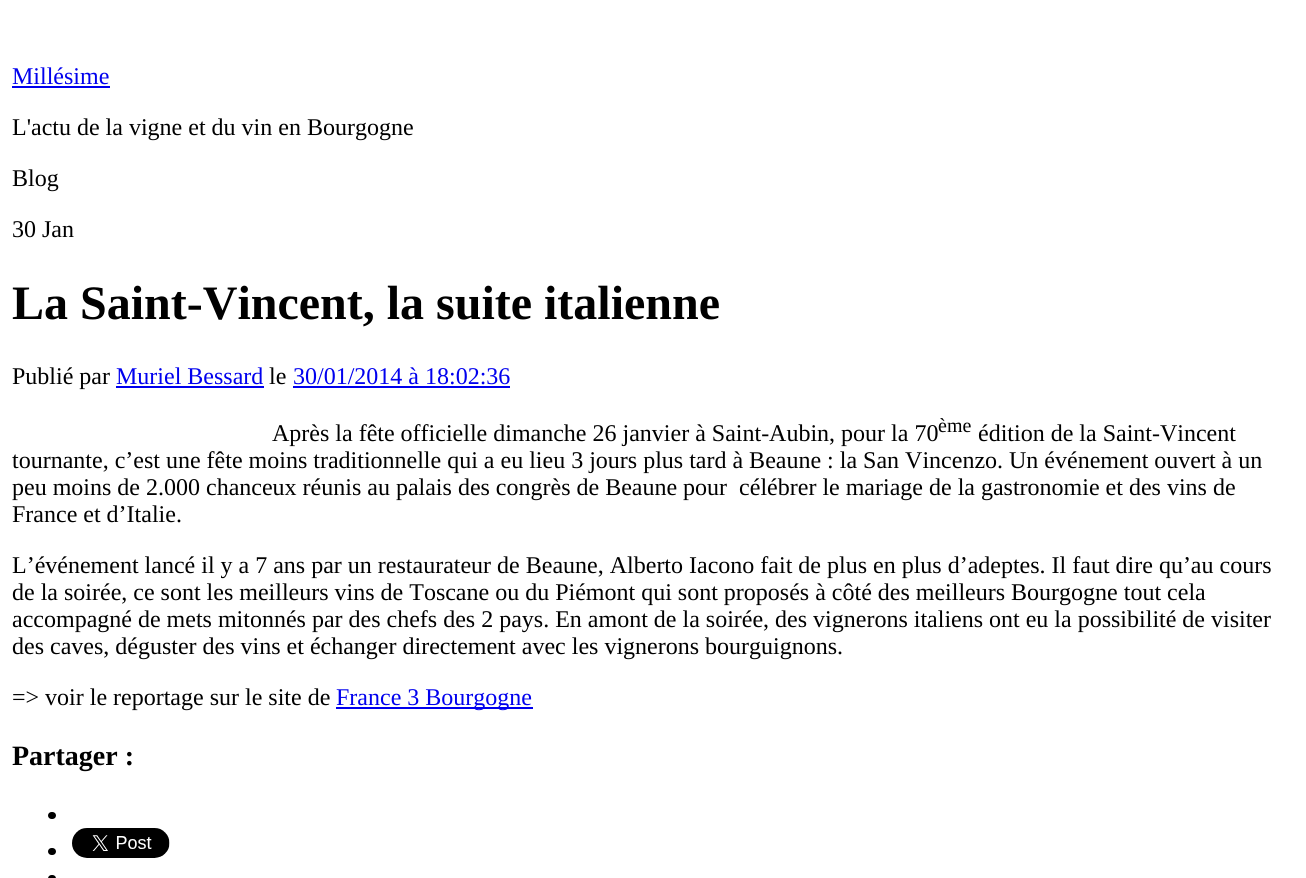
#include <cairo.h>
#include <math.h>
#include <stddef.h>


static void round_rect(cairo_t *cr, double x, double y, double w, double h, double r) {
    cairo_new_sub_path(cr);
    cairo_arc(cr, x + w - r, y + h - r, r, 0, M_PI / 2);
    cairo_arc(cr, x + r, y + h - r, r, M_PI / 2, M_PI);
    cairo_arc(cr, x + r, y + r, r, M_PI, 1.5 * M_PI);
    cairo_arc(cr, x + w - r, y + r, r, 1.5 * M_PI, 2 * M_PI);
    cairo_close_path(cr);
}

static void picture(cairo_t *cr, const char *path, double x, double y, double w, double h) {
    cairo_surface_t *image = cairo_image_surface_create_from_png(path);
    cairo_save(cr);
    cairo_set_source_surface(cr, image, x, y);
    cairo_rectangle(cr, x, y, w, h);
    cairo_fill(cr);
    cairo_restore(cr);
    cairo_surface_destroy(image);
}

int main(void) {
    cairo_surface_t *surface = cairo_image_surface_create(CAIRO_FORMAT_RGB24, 1306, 878);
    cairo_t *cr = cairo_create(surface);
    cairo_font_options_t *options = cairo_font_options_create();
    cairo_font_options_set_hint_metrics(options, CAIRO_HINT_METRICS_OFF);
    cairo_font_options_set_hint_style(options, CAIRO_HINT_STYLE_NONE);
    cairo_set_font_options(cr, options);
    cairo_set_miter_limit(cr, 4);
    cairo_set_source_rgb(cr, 1, 1, 1);
    cairo_paint(cr);
    cairo_select_font_face(cr, "Liberation Serif", CAIRO_FONT_SLANT_NORMAL, CAIRO_FONT_WEIGHT_NORMAL);
    cairo_set_font_size(cr, 24);
    cairo_set_source_rgb(cr, 0, 0, 0.933);
    cairo_move_to(cr, 12, 84);
    cairo_show_text(cr, "Millésime");
    cairo_rectangle(cr, 12, 86, 98, 2);
    cairo_fill(cr);
    cairo_set_source_rgb(cr, 0, 0, 0);
    cairo_move_to(cr, 12, 135);
    cairo_show_text(cr, "L'actu de la vigne et du vin en Bourgogne");
    cairo_move_to(cr, 12, 186);
    cairo_show_text(cr, "Blog");
    cairo_move_to(cr, 12, 237);
    cairo_show_text(cr, "30 Jan");
    cairo_select_font_face(cr, "Liberation Serif", CAIRO_FONT_SLANT_NORMAL, CAIRO_FONT_WEIGHT_BOLD);
    cairo_set_font_size(cr, 48);
    cairo_move_to(cr, 12, 319);
    cairo_show_text(cr, "La Saint-Vincent, la suite italienne");
    cairo_select_font_face(cr, "Liberation Serif", CAIRO_FONT_SLANT_NORMAL, CAIRO_FONT_WEIGHT_NORMAL);
    cairo_set_font_size(cr, 24);
    cairo_move_to(cr, 12, 384);
    cairo_show_text(cr, "Publié par");
    cairo_set_source_rgb(cr, 0, 0, 0.933);
    cairo_move_to(cr, 116, 384);
    cairo_show_text(cr, "Muriel Bessard");
    cairo_rectangle(cr, 116, 386, 148, 2);
    cairo_fill(cr);
    cairo_set_source_rgb(cr, 0, 0, 0);
    cairo_move_to(cr, 269, 384);
    cairo_show_text(cr, "le");
    cairo_set_source_rgb(cr, 0, 0, 0.933);
    cairo_move_to(cr, 293, 384);
    cairo_show_text(cr, "30/01/2014 à 18:02:36");
    cairo_rectangle(cr, 293, 386, 217, 2);
    cairo_fill(cr);
    cairo_set_source_rgb(cr, 0, 0, 0);
    cairo_move_to(cr, 272, 441);
    cairo_show_text(cr, "Après la fête officielle dimanche 26 janvier à Saint-Aubin, pour la 70");
    cairo_set_font_size(cr, 20);
    cairo_move_to(cr, 938, 432);
    cairo_show_text(cr, "ème");
    cairo_set_font_size(cr, 24);
    cairo_move_to(cr, 978, 441);
    cairo_show_text(cr, "édition de la Saint-Vincent");
    cairo_move_to(cr, 12, 468);
    cairo_show_text(cr, "tournante, c’est une fête moins traditionnelle qui a eu lieu 3 jours plus tard à Beaune : la San Vincenzo. Un événement ouvert à un");
    cairo_move_to(cr, 12, 495);
    cairo_show_text(cr, "peu moins de 2.000 chanceux réunis au palais des congrès de Beaune pour  célébrer le mariage de la gastronomie et des vins de");
    cairo_move_to(cr, 12, 522);
    cairo_show_text(cr, "France et d’Italie.");
    cairo_move_to(cr, 12, 573);
    cairo_show_text(cr, "L’événement lancé il y a 7 ans par un restaurateur de Beaune, Alberto Iacono fait de plus en plus d’adeptes. Il faut dire qu’au cours");
    cairo_move_to(cr, 12, 600);
    cairo_show_text(cr, "de la soirée, ce sont les meilleurs vins de Toscane ou du Piémont qui sont proposés à côté des meilleurs Bourgogne tout cela");
    cairo_move_to(cr, 12, 627);
    cairo_show_text(cr, "accompagné de mets mitonnés par des chefs des 2 pays. En amont de la soirée, des vignerons italiens ont eu la possibilité de visiter");
    cairo_move_to(cr, 12, 654);
    cairo_show_text(cr, "des caves, déguster des vins et échanger directement avec les vignerons bourguignons.");
    cairo_move_to(cr, 12, 705);
    cairo_show_text(cr, "=> voir le reportage sur le site de");
    cairo_set_source_rgb(cr, 0, 0, 0.933);
    cairo_rectangle(cr, 336, 707, 197, 2);
    cairo_fill(cr);
    cairo_move_to(cr, 336, 705);
    cairo_show_text(cr, "France 3 Bourgogne");
    cairo_select_font_face(cr, "Liberation Serif", CAIRO_FONT_SLANT_NORMAL, CAIRO_FONT_WEIGHT_BOLD);
    cairo_set_font_size(cr, 28);
    cairo_set_source_rgb(cr, 0, 0, 0);
    cairo_move_to(cr, 12, 765);
    cairo_show_text(cr, "Partager :");
    round_rect(cr, 48, 812, 8, 7, 3.5);
    cairo_fill(cr);
    round_rect(cr, 48, 848, 8, 7, 3.5);
    cairo_fill(cr);
    picture(cr, "img1.png", 72, 828, 98, 30);
    round_rect(cr, 48, 875, 8, 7, 3.5);
    cairo_fill(cr);
    cairo_surface_write_to_png(surface, "page.png");
    cairo_font_options_destroy(options);
    cairo_destroy(cr);
    cairo_surface_destroy(surface);
    return 0;
}
